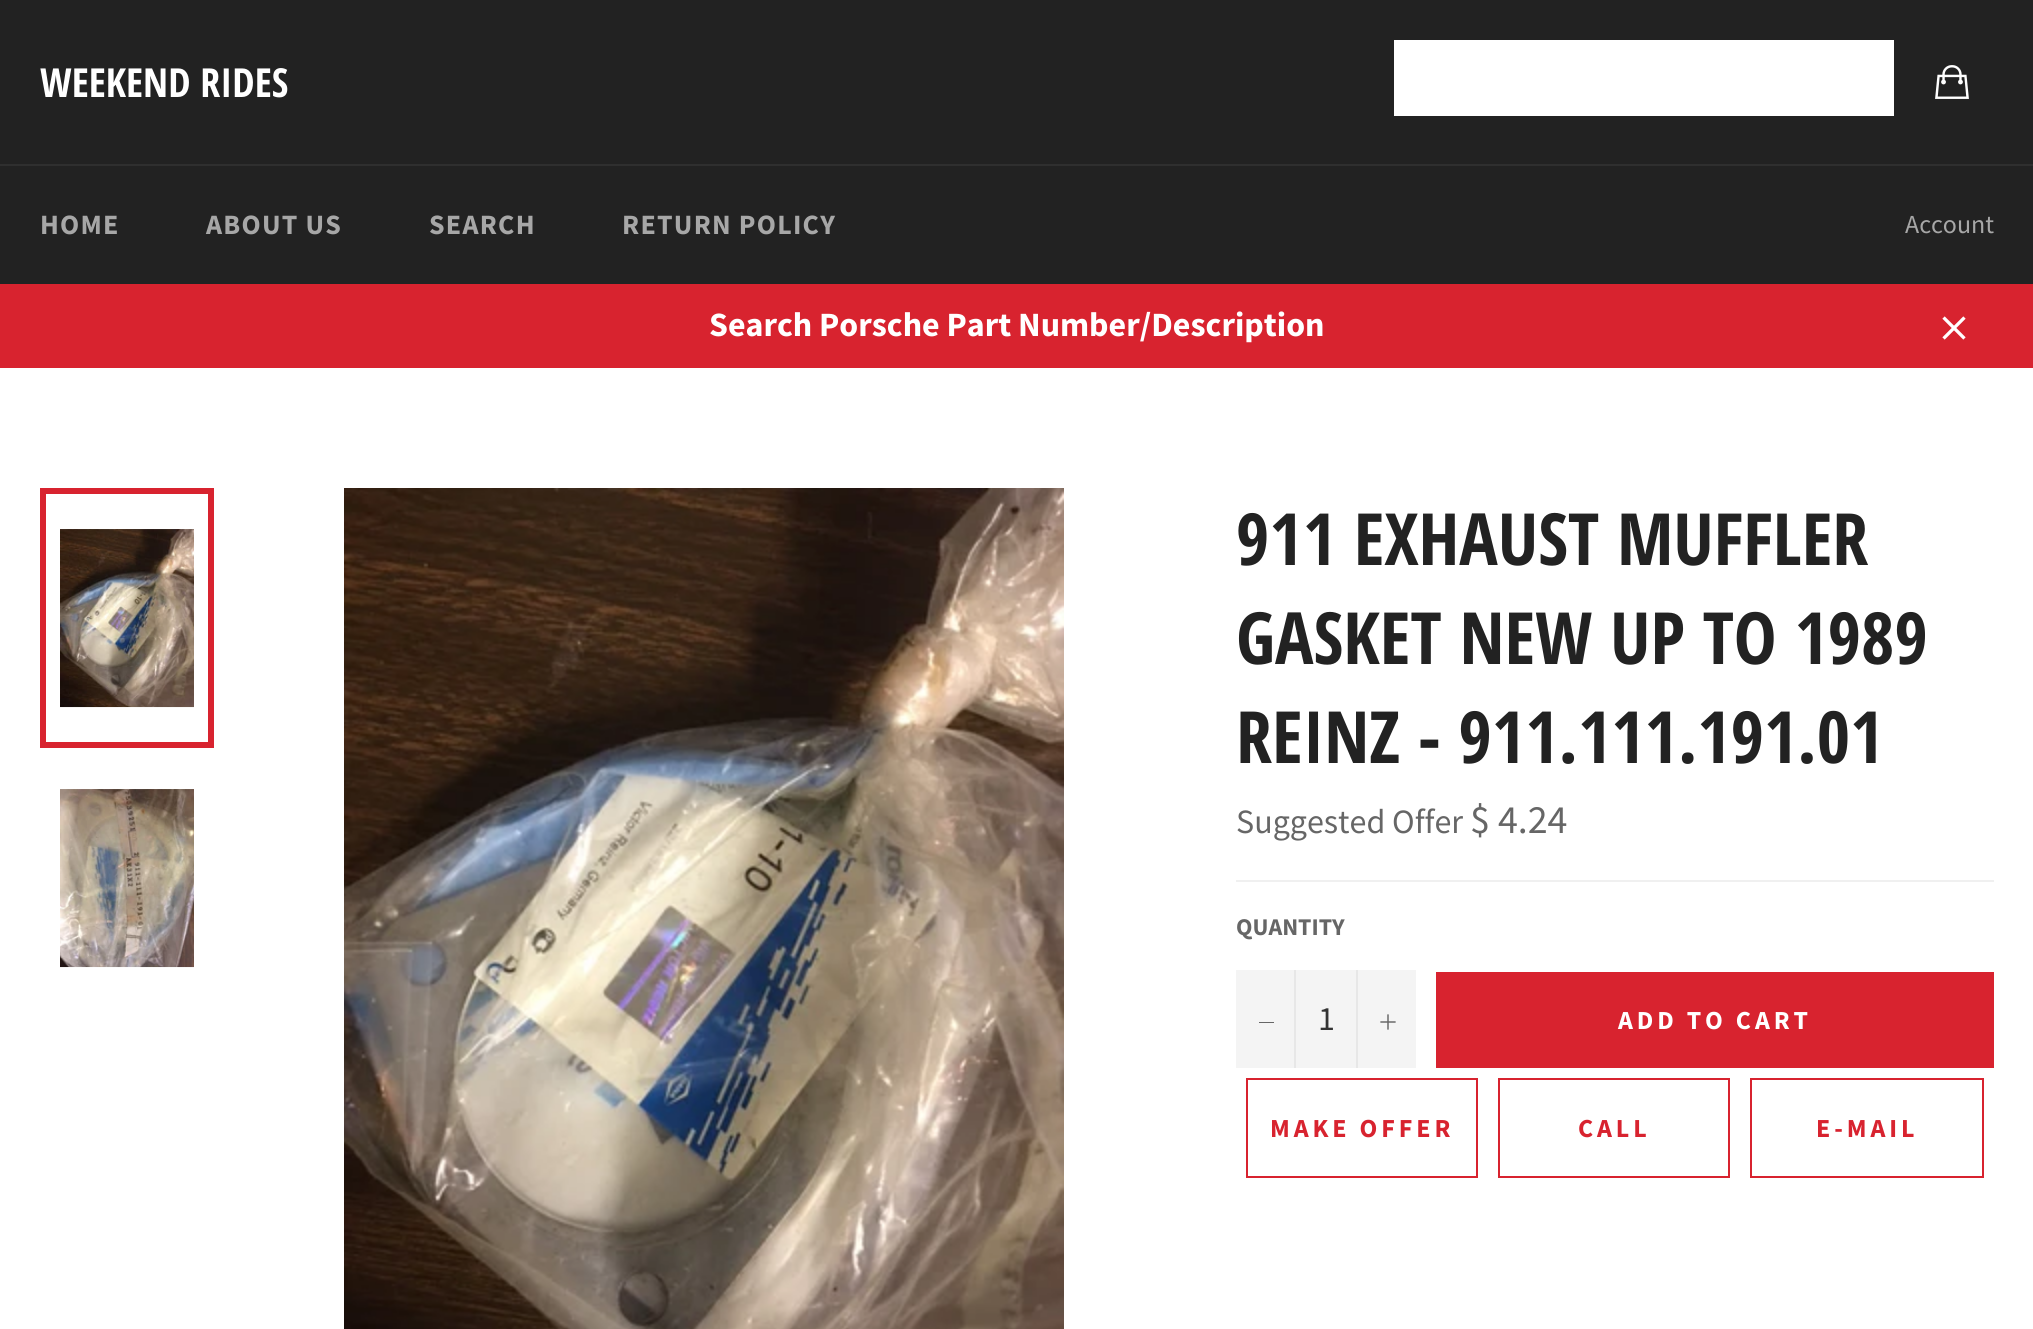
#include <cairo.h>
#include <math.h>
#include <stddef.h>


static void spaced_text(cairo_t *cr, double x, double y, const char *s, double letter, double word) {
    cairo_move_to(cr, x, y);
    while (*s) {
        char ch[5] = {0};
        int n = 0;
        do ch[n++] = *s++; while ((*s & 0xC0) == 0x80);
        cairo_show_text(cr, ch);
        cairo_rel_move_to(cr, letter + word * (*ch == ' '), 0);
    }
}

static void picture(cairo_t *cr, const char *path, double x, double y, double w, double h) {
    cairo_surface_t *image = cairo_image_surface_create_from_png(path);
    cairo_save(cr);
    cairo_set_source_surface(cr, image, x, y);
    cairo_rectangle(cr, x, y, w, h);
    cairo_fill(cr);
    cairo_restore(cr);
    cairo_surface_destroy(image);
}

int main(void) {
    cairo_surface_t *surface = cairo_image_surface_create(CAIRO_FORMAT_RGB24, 2033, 1329);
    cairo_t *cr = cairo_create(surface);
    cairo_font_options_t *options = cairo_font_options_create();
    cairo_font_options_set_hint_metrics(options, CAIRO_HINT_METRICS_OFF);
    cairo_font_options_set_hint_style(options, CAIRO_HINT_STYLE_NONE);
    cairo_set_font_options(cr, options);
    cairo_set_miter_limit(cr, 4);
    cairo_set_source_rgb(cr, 1, 1, 1);
    cairo_paint(cr);
    cairo_set_source_rgb(cr, 0.133, 0.133, 0.133);
    cairo_rectangle(cr, 0, 0, 2033, 164);
    cairo_fill(cr);
    cairo_select_font_face(cr, "Open Sans Condensed", CAIRO_FONT_SLANT_NORMAL, CAIRO_FONT_WEIGHT_BOLD);
    cairo_set_font_size(cr, 40);
    cairo_set_source_rgb(cr, 1, 1, 1);
    cairo_move_to(cr, 40, 97);
    cairo_show_text(cr, "WEEKEND RIDES");
    cairo_rectangle(cr, 1394, 40, 500, 76);
    cairo_fill(cr);
    picture(cr, "img1.png", 1935, 65, 34, 34);
    cairo_set_source_rgb(cr, 0.133, 0.133, 0.133);
    cairo_rectangle(cr, 0, 166, 2033, 118);
    cairo_fill(cr);
    cairo_set_source_rgb(cr, 0.184, 0.184, 0.184);
    cairo_rectangle(cr, 0, 164, 2033, 2);
    cairo_fill(cr);
    cairo_select_font_face(cr, "Source Sans Pro", CAIRO_FONT_SLANT_NORMAL, CAIRO_FONT_WEIGHT_BOLD);
    cairo_set_font_size(cr, 28);
    cairo_set_source_rgb(cr, 0.655, 0.655, 0.655);
    spaced_text(cr, 40, 234, "HOME", 1.25, 0);
    spaced_text(cr, 206, 234, "ABOUT US", 1.25, 0);
    spaced_text(cr, 429, 234, "SEARCH", 1.25, 0);
    spaced_text(cr, 622, 234, "RETURN POLICY", 1.25, 0);
    cairo_select_font_face(cr, "Source Sans Pro", CAIRO_FONT_SLANT_NORMAL, CAIRO_FONT_WEIGHT_NORMAL);
    cairo_set_font_size(cr, 26);
    cairo_move_to(cr, 1905, 233);
    cairo_show_text(cr, "Account");
    cairo_set_source_rgb(cr, 0.847, 0.137, 0.184);
    cairo_rectangle(cr, 0, 284, 2033, 84);
    cairo_fill(cr);
    cairo_select_font_face(cr, "Source Sans Pro", CAIRO_FONT_SLANT_NORMAL, CAIRO_FONT_WEIGHT_BOLD);
    cairo_set_font_size(cr, 34);
    cairo_set_source_rgb(cr, 1, 1, 1);
    cairo_move_to(cr, 709, 336);
    cairo_show_text(cr, "Search Porsche Part Number/Description");
    picture(cr, "img2.png", 1942, 316, 24, 24);
    picture(cr, "img3.png", 60, 529, 134, 179);
    cairo_rectangle(cr, 43, 491, 168, 254);
    cairo_set_source_rgb(cr, 0.847, 0.137, 0.184);
    cairo_set_line_width(cr, 6);
    cairo_stroke(cr);
    picture(cr, "img4.png", 60, 789, 134, 179);
    picture(cr, "img5.png", 344, 488, 720, 841);
    cairo_select_font_face(cr, "Open Sans Condensed", CAIRO_FONT_SLANT_NORMAL, CAIRO_FONT_WEIGHT_BOLD);
    cairo_set_font_size(cr, 72);
    cairo_set_source_rgb(cr, 0.133, 0.133, 0.133);
    cairo_move_to(cr, 1236, 565);
    cairo_show_text(cr, "911 EXHAUST MUFFLER");
    cairo_move_to(cr, 1236, 664);
    cairo_show_text(cr, "GASKET NEW UP TO 1989");
    cairo_move_to(cr, 1236, 763);
    cairo_show_text(cr, "REINZ - 911.111.191.01");
    cairo_select_font_face(cr, "Source Sans Pro", CAIRO_FONT_SLANT_NORMAL, CAIRO_FONT_WEIGHT_NORMAL);
    cairo_set_font_size(cr, 34);
    cairo_set_source_rgb(cr, 0.4, 0.4, 0.4);
    cairo_move_to(cr, 1236, 833);
    cairo_show_text(cr, "Suggested Offer");
    cairo_set_font_size(cr, 40);
    cairo_move_to(cr, 1470, 833);
    cairo_show_text(cr, "$ 4.24");
    cairo_set_source_rgb(cr, 0.941, 0.941, 0.941);
    cairo_rectangle(cr, 1236, 880, 758, 2);
    cairo_fill(cr);
    cairo_select_font_face(cr, "Source Sans Pro", CAIRO_FONT_SLANT_NORMAL, CAIRO_FONT_WEIGHT_BOLD);
    cairo_set_font_size(cr, 24);
    cairo_set_source_rgb(cr, 0.4, 0.4, 0.4);
    cairo_move_to(cr, 1236, 935);
    cairo_show_text(cr, "QUANTITY");
    cairo_set_source_rgb(cr, 0.957, 0.957, 0.957);
    cairo_rectangle(cr, 1236, 970, 180, 98);
    cairo_fill(cr);
    cairo_set_source_rgb(cr, 0.906, 0.906, 0.906);
    cairo_rectangle(cr, 1294, 970, 2, 98);
    cairo_fill(cr);
    cairo_set_source_rgb(cr, 0.4, 0.4, 0.4);
    cairo_rectangle(cr, 1259, 1022, 15, 1);
    cairo_fill(cr);
    cairo_select_font_face(cr, "Source Sans Pro", CAIRO_FONT_SLANT_NORMAL, CAIRO_FONT_WEIGHT_NORMAL);
    cairo_set_font_size(cr, 34);
    cairo_set_source_rgb(cr, 0.2, 0.2, 0.2);
    cairo_move_to(cr, 1318, 1030);
    cairo_show_text(cr, "1");
    cairo_set_source_rgb(cr, 0.906, 0.906, 0.906);
    cairo_rectangle(cr, 1356, 970, 2, 98);
    cairo_fill(cr);
    picture(cr, "img6.png", 1380, 1014, 16, 16);
    cairo_set_source_rgb(cr, 0.847, 0.137, 0.184);
    cairo_rectangle(cr, 1436, 972, 558, 96);
    cairo_fill(cr);
    cairo_select_font_face(cr, "Source Sans Pro", CAIRO_FONT_SLANT_NORMAL, CAIRO_FONT_WEIGHT_BOLD);
    cairo_set_font_size(cr, 26);
    cairo_set_source_rgb(cr, 1, 1, 1);
    spaced_text(cr, 1618, 1029, "ADD TO CART", 3.9, 0);
    cairo_rectangle(cr, 1247, 1079, 230, 98);
    cairo_set_source_rgb(cr, 0.847, 0.137, 0.184);
    cairo_set_line_width(cr, 2);
    cairo_stroke(cr);
    spaced_text(cr, 1270, 1137, "MAKE OFFER", 3.9, 0);
    cairo_rectangle(cr, 1499, 1079, 230, 98);
    cairo_stroke(cr);
    spaced_text(cr, 1578, 1137, "CALL", 3.9, 0);
    cairo_rectangle(cr, 1751, 1079, 232, 98);
    cairo_stroke(cr);
    spaced_text(cr, 1816, 1137, "E-MAIL", 3.9, 0);
    cairo_surface_write_to_png(surface, "page.png");
    cairo_font_options_destroy(options);
    cairo_destroy(cr);
    cairo_surface_destroy(surface);
    return 0;
}
